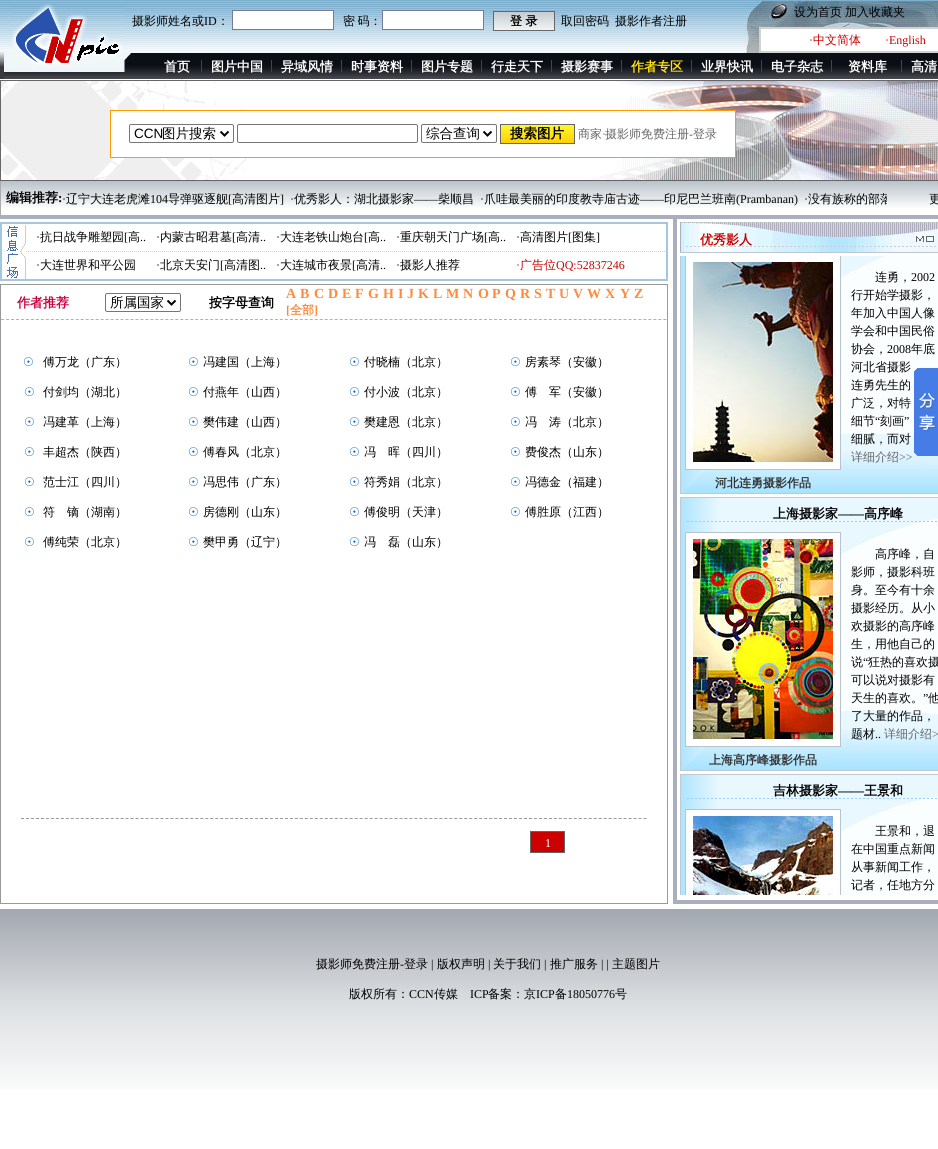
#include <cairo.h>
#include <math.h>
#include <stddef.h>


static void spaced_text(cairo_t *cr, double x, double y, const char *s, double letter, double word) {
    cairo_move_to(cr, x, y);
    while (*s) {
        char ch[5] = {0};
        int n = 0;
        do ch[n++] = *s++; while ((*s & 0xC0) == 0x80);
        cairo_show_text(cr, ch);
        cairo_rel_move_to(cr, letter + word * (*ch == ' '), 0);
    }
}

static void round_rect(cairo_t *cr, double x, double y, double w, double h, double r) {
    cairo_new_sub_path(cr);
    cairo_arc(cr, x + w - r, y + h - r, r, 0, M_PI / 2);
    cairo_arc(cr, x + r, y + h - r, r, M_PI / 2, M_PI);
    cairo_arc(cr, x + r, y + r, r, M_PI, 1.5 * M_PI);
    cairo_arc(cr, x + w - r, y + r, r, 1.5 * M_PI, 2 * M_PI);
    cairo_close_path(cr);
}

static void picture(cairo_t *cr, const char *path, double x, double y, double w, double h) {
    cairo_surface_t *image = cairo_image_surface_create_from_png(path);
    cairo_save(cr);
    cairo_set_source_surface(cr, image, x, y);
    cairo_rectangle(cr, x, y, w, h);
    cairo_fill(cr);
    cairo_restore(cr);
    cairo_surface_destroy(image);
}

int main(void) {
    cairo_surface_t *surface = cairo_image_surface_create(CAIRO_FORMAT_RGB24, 938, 1149);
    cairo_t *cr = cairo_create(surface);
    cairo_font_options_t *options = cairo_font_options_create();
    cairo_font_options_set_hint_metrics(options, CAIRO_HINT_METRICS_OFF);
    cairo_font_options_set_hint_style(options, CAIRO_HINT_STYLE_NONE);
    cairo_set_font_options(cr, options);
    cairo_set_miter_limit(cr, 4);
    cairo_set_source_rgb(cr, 1, 1, 1);
    cairo_paint(cr);
    picture(cr, "img1.png", 0, 0, 938, 79);
    picture(cr, "img2.png", 0, 51, 131, 28);
    picture(cr, "img3.png", 10, 3, 113, 65);
    cairo_select_font_face(cr, "WenQuanYi Zen Hei Medium", CAIRO_FONT_SLANT_NORMAL, CAIRO_FONT_WEIGHT_NORMAL);
    cairo_set_font_size(cr, 12);
    cairo_set_source_rgb(cr, 0, 0, 0);
    cairo_move_to(cr, 132, 25);
    cairo_show_text(cr, "摄影师姓名或");
    cairo_select_font_face(cr, "Liberation Serif", CAIRO_FONT_SLANT_NORMAL, CAIRO_FONT_WEIGHT_NORMAL);
    cairo_move_to(cr, 204, 25);
    cairo_show_text(cr, "ID");
    cairo_select_font_face(cr, "WenQuanYi Zen Hei Medium", CAIRO_FONT_SLANT_NORMAL, CAIRO_FONT_WEIGHT_NORMAL);
    cairo_move_to(cr, 217, 25);
    cairo_show_text(cr, "：");
    cairo_set_source_rgb(cr, 1, 1, 1);
    cairo_rectangle(cr, 232.5, 10.5, 101, 19);
    cairo_fill_preserve(cr);
    cairo_set_source_rgb(cr, 0.447, 0.486, 0.604);
    cairo_set_line_width(cr, 1);
    cairo_stroke(cr);
    cairo_set_source_rgb(cr, 0, 0, 0);
    spaced_text(cr, 343, 25, "密 码：", 0, -1);
    cairo_set_source_rgb(cr, 1, 1, 1);
    cairo_rectangle(cr, 382.5, 10.5, 101, 19);
    cairo_fill_preserve(cr);
    cairo_set_source_rgb(cr, 0.447, 0.486, 0.604);
    cairo_stroke(cr);
    picture(cr, "img4.png", 493, 11, 62, 20);
    cairo_select_font_face(cr, "WenQuanYi Zen Hei", CAIRO_FONT_SLANT_NORMAL, CAIRO_FONT_WEIGHT_BOLD);
    cairo_set_source_rgb(cr, 0, 0, 0);
    cairo_move_to(cr, 510, 25);
    cairo_show_text(cr, "登 录");
    cairo_select_font_face(cr, "WenQuanYi Zen Hei Medium", CAIRO_FONT_SLANT_NORMAL, CAIRO_FONT_WEIGHT_NORMAL);
    cairo_move_to(cr, 561, 25);
    cairo_show_text(cr, "取回密码");
    cairo_move_to(cr, 615, 25);
    cairo_show_text(cr, "摄影作者注册");
    picture(cr, "img5.png", 744, 1, 194, 52);
    cairo_move_to(cr, 794, 16);
    cairo_show_text(cr, "设为首页");
    cairo_move_to(cr, 845, 16);
    cairo_show_text(cr, "加入收藏夹");
    cairo_set_source_rgb(cr, 1, 1, 1);
    cairo_rectangle(cr, 760, 28, 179, 24);
    cairo_fill_preserve(cr);
    cairo_set_source_rgb(cr, 0.827, 0.824, 0.816);
    cairo_set_line_width(cr, 2);
    cairo_stroke(cr);
    cairo_select_font_face(cr, "Liberation Serif", CAIRO_FONT_SLANT_NORMAL, CAIRO_FONT_WEIGHT_NORMAL);
    cairo_set_source_rgb(cr, 0.8, 0, 0);
    cairo_move_to(cr, 809, 44);
    cairo_show_text(cr, "·");
    cairo_select_font_face(cr, "WenQuanYi Zen Hei Medium", CAIRO_FONT_SLANT_NORMAL, CAIRO_FONT_WEIGHT_NORMAL);
    cairo_move_to(cr, 813, 44);
    cairo_show_text(cr, "中文简体");
    cairo_select_font_face(cr, "Liberation Serif", CAIRO_FONT_SLANT_NORMAL, CAIRO_FONT_WEIGHT_NORMAL);
    cairo_move_to(cr, 885, 44);
    cairo_show_text(cr, "·English");
    cairo_set_source_rgb(cr, 0.075, 0.306, 0.616);
    cairo_rectangle(cr, 201, 60, 1, 12);
    cairo_fill(cr);
    cairo_select_font_face(cr, "WenQuanYi Zen Hei", CAIRO_FONT_SLANT_NORMAL, CAIRO_FONT_WEIGHT_BOLD);
    cairo_set_font_size(cr, 13);
    cairo_set_source_rgb(cr, 1, 1, 1);
    cairo_move_to(cr, 164, 71);
    cairo_show_text(cr, "首页");
    cairo_set_source_rgb(cr, 0.075, 0.306, 0.616);
    cairo_rectangle(cr, 271, 60, 1, 12);
    cairo_fill(cr);
    cairo_set_source_rgb(cr, 1, 1, 1);
    cairo_move_to(cr, 211, 71);
    cairo_show_text(cr, "图片中国");
    cairo_set_source_rgb(cr, 0.075, 0.306, 0.616);
    cairo_rectangle(cr, 341, 60, 1, 12);
    cairo_fill(cr);
    cairo_set_source_rgb(cr, 1, 1, 1);
    cairo_move_to(cr, 281, 71);
    cairo_show_text(cr, "异域风情");
    cairo_set_source_rgb(cr, 0.075, 0.306, 0.616);
    cairo_rectangle(cr, 411, 60, 1, 12);
    cairo_fill(cr);
    cairo_set_source_rgb(cr, 1, 1, 1);
    cairo_move_to(cr, 351, 71);
    cairo_show_text(cr, "时事资料");
    cairo_set_source_rgb(cr, 0.075, 0.306, 0.616);
    cairo_rectangle(cr, 481, 60, 1, 12);
    cairo_fill(cr);
    cairo_set_source_rgb(cr, 1, 1, 1);
    cairo_move_to(cr, 421, 71);
    cairo_show_text(cr, "图片专题");
    cairo_set_source_rgb(cr, 0.075, 0.306, 0.616);
    cairo_rectangle(cr, 551, 60, 1, 12);
    cairo_fill(cr);
    cairo_set_source_rgb(cr, 1, 1, 1);
    cairo_move_to(cr, 491, 71);
    cairo_show_text(cr, "行走天下");
    cairo_set_source_rgb(cr, 0.075, 0.306, 0.616);
    cairo_rectangle(cr, 621, 60, 1, 12);
    cairo_fill(cr);
    cairo_set_source_rgb(cr, 1, 1, 1);
    cairo_move_to(cr, 561, 71);
    cairo_show_text(cr, "摄影赛事");
    cairo_set_source_rgb(cr, 0.075, 0.306, 0.616);
    cairo_rectangle(cr, 691, 60, 1, 12);
    cairo_fill(cr);
    cairo_set_source_rgb(cr, 1, 0.878, 0.078);
    cairo_move_to(cr, 631, 71);
    cairo_show_text(cr, "作者专区");
    cairo_set_source_rgb(cr, 0.075, 0.306, 0.616);
    cairo_rectangle(cr, 761, 60, 1, 12);
    cairo_fill(cr);
    cairo_set_source_rgb(cr, 1, 1, 1);
    cairo_move_to(cr, 701, 71);
    cairo_show_text(cr, "业界快讯");
    cairo_set_source_rgb(cr, 0.075, 0.306, 0.616);
    cairo_rectangle(cr, 831, 60, 1, 12);
    cairo_fill(cr);
    cairo_set_source_rgb(cr, 1, 1, 1);
    cairo_move_to(cr, 771, 71);
    cairo_show_text(cr, "电子杂志");
    cairo_set_source_rgb(cr, 0.075, 0.306, 0.616);
    cairo_rectangle(cr, 901, 60, 1, 12);
    cairo_fill(cr);
    cairo_set_source_rgb(cr, 1, 1, 1);
    cairo_move_to(cr, 848, 71);
    cairo_show_text(cr, "资料库");
    cairo_move_to(cr, 911, 71);
    cairo_show_text(cr, "高清");
    picture(cr, "img6.png", 0, 80, 938, 101);
    cairo_rectangle(cr, 110.5, 110.5, 625, 47);
    cairo_fill_preserve(cr);
    cairo_set_source_rgb(cr, 1, 0.6, 0);
    cairo_set_line_width(cr, 1);
    cairo_stroke(cr);
    round_rect(cr, 129.5, 124.5, 104, 18, 1.5);
    cairo_set_source_rgb(cr, 0.463, 0.463, 0.463);
    cairo_stroke(cr);
    cairo_new_path(cr);
    cairo_move_to(cr, 220.5, 131.5);
    cairo_line_to(cr, 224.5, 135.5);
    cairo_line_to(cr, 228.5, 131.5);
    cairo_set_source_rgb(cr, 0, 0, 0);
    cairo_set_line_width(cr, 2);
    cairo_stroke(cr);
    cairo_select_font_face(cr, "Liberation Sans", CAIRO_FONT_SLANT_NORMAL, CAIRO_FONT_WEIGHT_NORMAL);
    cairo_set_font_size(cr, 13.5);
    cairo_move_to(cr, 134, 138);
    cairo_show_text(cr, "CCN");
    cairo_select_font_face(cr, "WenQuanYi Zen Hei Medium", CAIRO_FONT_SLANT_NORMAL, CAIRO_FONT_WEIGHT_NORMAL);
    cairo_move_to(cr, 162, 138);
    cairo_show_text(cr, "图片搜索");
    round_rect(cr, 237.5, 124.5, 180, 18, 1.5);
    cairo_set_source_rgb(cr, 0.463, 0.463, 0.463);
    cairo_set_line_width(cr, 1);
    cairo_stroke(cr);
    round_rect(cr, 421.5, 124.5, 75, 18, 1.5);
    cairo_stroke(cr);
    cairo_new_path(cr);
    cairo_move_to(cr, 483.5, 131.5);
    cairo_line_to(cr, 487.5, 135.5);
    cairo_line_to(cr, 491.5, 131.5);
    cairo_set_source_rgb(cr, 0, 0, 0);
    cairo_set_line_width(cr, 2);
    cairo_stroke(cr);
    cairo_move_to(cr, 426, 138);
    cairo_show_text(cr, "综合查询");
    picture(cr, "img7.png", 500, 124, 75, 20);
    cairo_select_font_face(cr, "WenQuanYi Zen Hei", CAIRO_FONT_SLANT_NORMAL, CAIRO_FONT_WEIGHT_BOLD);
    cairo_move_to(cr, 510, 138);
    cairo_show_text(cr, "搜索图片");
    cairo_select_font_face(cr, "WenQuanYi Zen Hei Medium", CAIRO_FONT_SLANT_NORMAL, CAIRO_FONT_WEIGHT_NORMAL);
    cairo_set_font_size(cr, 12);
    cairo_set_source_rgb(cr, 0.4, 0.4, 0.4);
    cairo_move_to(cr, 578, 138);
    cairo_show_text(cr, "商家");
    cairo_select_font_face(cr, "Liberation Serif", CAIRO_FONT_SLANT_NORMAL, CAIRO_FONT_WEIGHT_NORMAL);
    cairo_move_to(cr, 602, 138);
    cairo_show_text(cr, "·");
    cairo_select_font_face(cr, "WenQuanYi Zen Hei Medium", CAIRO_FONT_SLANT_NORMAL, CAIRO_FONT_WEIGHT_NORMAL);
    cairo_move_to(cr, 605, 138);
    cairo_show_text(cr, "摄影师免费注册");
    cairo_select_font_face(cr, "Liberation Serif", CAIRO_FONT_SLANT_NORMAL, CAIRO_FONT_WEIGHT_NORMAL);
    cairo_move_to(cr, 689, 138);
    cairo_show_text(cr, "-");
    cairo_select_font_face(cr, "WenQuanYi Zen Hei Medium", CAIRO_FONT_SLANT_NORMAL, CAIRO_FONT_WEIGHT_NORMAL);
    cairo_move_to(cr, 693, 138);
    cairo_show_text(cr, "登录");
    picture(cr, "img8.png", 1, 181, 937, 27);
    cairo_set_source_rgb(cr, 0.675, 0.675, 0.675);
    cairo_rectangle(cr, 0, 181, 1, 34);
    cairo_fill(cr);
    cairo_select_font_face(cr, "WenQuanYi Zen Hei", CAIRO_FONT_SLANT_NORMAL, CAIRO_FONT_WEIGHT_BOLD);
    cairo_set_font_size(cr, 13);
    cairo_set_source_rgb(cr, 0, 0, 0);
    cairo_move_to(cr, 6, 202);
    cairo_show_text(cr, "编辑推荐");
    cairo_select_font_face(cr, "Liberation Serif", CAIRO_FONT_SLANT_NORMAL, CAIRO_FONT_WEIGHT_BOLD);
    cairo_move_to(cr, 58, 202);
    cairo_show_text(cr, ":");
    cairo_select_font_face(cr, "Liberation Serif", CAIRO_FONT_SLANT_NORMAL, CAIRO_FONT_WEIGHT_NORMAL);
    cairo_set_font_size(cr, 12);
    cairo_move_to(cr, 62, 203);
    cairo_show_text(cr, "·");
    cairo_select_font_face(cr, "WenQuanYi Zen Hei Medium", CAIRO_FONT_SLANT_NORMAL, CAIRO_FONT_WEIGHT_NORMAL);
    cairo_move_to(cr, 66, 203);
    cairo_show_text(cr, "辽宁大连老虎滩");
    cairo_select_font_face(cr, "Liberation Serif", CAIRO_FONT_SLANT_NORMAL, CAIRO_FONT_WEIGHT_NORMAL);
    cairo_move_to(cr, 150, 203);
    cairo_show_text(cr, "104");
    cairo_select_font_face(cr, "WenQuanYi Zen Hei Medium", CAIRO_FONT_SLANT_NORMAL, CAIRO_FONT_WEIGHT_NORMAL);
    cairo_move_to(cr, 168, 203);
    cairo_show_text(cr, "导弹驱逐舰");
    cairo_select_font_face(cr, "Liberation Serif", CAIRO_FONT_SLANT_NORMAL, CAIRO_FONT_WEIGHT_NORMAL);
    cairo_move_to(cr, 228, 203);
    cairo_show_text(cr, "[");
    cairo_select_font_face(cr, "WenQuanYi Zen Hei Medium", CAIRO_FONT_SLANT_NORMAL, CAIRO_FONT_WEIGHT_NORMAL);
    cairo_move_to(cr, 232, 203);
    cairo_show_text(cr, "高清图片");
    cairo_select_font_face(cr, "Liberation Serif", CAIRO_FONT_SLANT_NORMAL, CAIRO_FONT_WEIGHT_NORMAL);
    cairo_move_to(cr, 280, 203);
    cairo_show_text(cr, "]");
    cairo_move_to(cr, 290, 203);
    cairo_show_text(cr, "·");
    cairo_select_font_face(cr, "WenQuanYi Zen Hei Medium", CAIRO_FONT_SLANT_NORMAL, CAIRO_FONT_WEIGHT_NORMAL);
    cairo_move_to(cr, 294, 203);
    cairo_show_text(cr, "优秀影人：湖北摄影家");
    cairo_select_font_face(cr, "Liberation Serif", CAIRO_FONT_SLANT_NORMAL, CAIRO_FONT_WEIGHT_NORMAL);
    cairo_move_to(cr, 414, 203);
    cairo_show_text(cr, "——");
    cairo_select_font_face(cr, "WenQuanYi Zen Hei Medium", CAIRO_FONT_SLANT_NORMAL, CAIRO_FONT_WEIGHT_NORMAL);
    cairo_move_to(cr, 438, 203);
    cairo_show_text(cr, "柴顺昌");
    cairo_select_font_face(cr, "Liberation Serif", CAIRO_FONT_SLANT_NORMAL, CAIRO_FONT_WEIGHT_NORMAL);
    cairo_move_to(cr, 480, 203);
    cairo_show_text(cr, "·");
    cairo_select_font_face(cr, "WenQuanYi Zen Hei Medium", CAIRO_FONT_SLANT_NORMAL, CAIRO_FONT_WEIGHT_NORMAL);
    cairo_move_to(cr, 484, 203);
    cairo_show_text(cr, "爪哇最美丽的印度教寺庙古迹");
    cairo_select_font_face(cr, "Liberation Serif", CAIRO_FONT_SLANT_NORMAL, CAIRO_FONT_WEIGHT_NORMAL);
    cairo_move_to(cr, 640, 203);
    cairo_show_text(cr, "——");
    cairo_select_font_face(cr, "WenQuanYi Zen Hei Medium", CAIRO_FONT_SLANT_NORMAL, CAIRO_FONT_WEIGHT_NORMAL);
    cairo_move_to(cr, 664, 203);
    cairo_show_text(cr, "印尼巴兰班南");
    cairo_select_font_face(cr, "Liberation Serif", CAIRO_FONT_SLANT_NORMAL, CAIRO_FONT_WEIGHT_NORMAL);
    cairo_move_to(cr, 736, 203);
    cairo_show_text(cr, "(Prambanan)");
    cairo_move_to(cr, 804, 203);
    cairo_show_text(cr, "·");
    cairo_save(cr);
    cairo_rectangle(cr, 62, 181, 825, 28);
    cairo_clip(cr);
    cairo_select_font_face(cr, "WenQuanYi Zen Hei Medium", CAIRO_FONT_SLANT_NORMAL, CAIRO_FONT_WEIGHT_NORMAL);
    cairo_move_to(cr, 808, 203);
    cairo_show_text(cr, "没有族称的部落");
    cairo_restore(cr);
    cairo_select_font_face(cr, "WenQuanYi Zen Hei Medium", CAIRO_FONT_SLANT_NORMAL, CAIRO_FONT_WEIGHT_NORMAL);
    cairo_move_to(cr, 929, 203);
    cairo_show_text(cr, "更");
    cairo_set_source_rgb(cr, 0.667, 0.686, 0.741);
    cairo_rectangle(cr, 0, 215, 938, 4);
    cairo_fill(cr);
    cairo_rectangle(cr, 1, 223, 666, 57);
    cairo_set_source_rgb(cr, 0.647, 0.78, 0.871);
    cairo_stroke(cr);
    picture(cr, "img9.png", 7, 225, 19, 54);
    cairo_new_path(cr);
    cairo_move_to(cr, 26, 251.5);
    cairo_line_to(cr, 666, 251.5);
    cairo_set_source_rgb(cr, 0.808, 0.812, 0.808);
    cairo_set_line_width(cr, 1);
    cairo_set_dash(cr, (double[]){1, 1}, 2, 0);
    cairo_stroke(cr);
    cairo_select_font_face(cr, "Liberation Serif", CAIRO_FONT_SLANT_NORMAL, CAIRO_FONT_WEIGHT_NORMAL);
    cairo_set_source_rgb(cr, 0, 0, 0);
    cairo_move_to(cr, 36, 241);
    cairo_show_text(cr, "·");
    cairo_select_font_face(cr, "WenQuanYi Zen Hei Medium", CAIRO_FONT_SLANT_NORMAL, CAIRO_FONT_WEIGHT_NORMAL);
    cairo_move_to(cr, 40, 241);
    cairo_show_text(cr, "抗日战争雕塑园");
    cairo_select_font_face(cr, "Liberation Serif", CAIRO_FONT_SLANT_NORMAL, CAIRO_FONT_WEIGHT_NORMAL);
    cairo_move_to(cr, 124, 241);
    cairo_show_text(cr, "[");
    cairo_select_font_face(cr, "WenQuanYi Zen Hei Medium", CAIRO_FONT_SLANT_NORMAL, CAIRO_FONT_WEIGHT_NORMAL);
    cairo_move_to(cr, 128, 241);
    cairo_show_text(cr, "高");
    cairo_select_font_face(cr, "Liberation Serif", CAIRO_FONT_SLANT_NORMAL, CAIRO_FONT_WEIGHT_NORMAL);
    cairo_move_to(cr, 140, 241);
    cairo_show_text(cr, "..");
    cairo_move_to(cr, 156, 241);
    cairo_show_text(cr, "·");
    cairo_select_font_face(cr, "WenQuanYi Zen Hei Medium", CAIRO_FONT_SLANT_NORMAL, CAIRO_FONT_WEIGHT_NORMAL);
    cairo_move_to(cr, 160, 241);
    cairo_show_text(cr, "内蒙古昭君墓");
    cairo_select_font_face(cr, "Liberation Serif", CAIRO_FONT_SLANT_NORMAL, CAIRO_FONT_WEIGHT_NORMAL);
    cairo_move_to(cr, 232, 241);
    cairo_show_text(cr, "[");
    cairo_select_font_face(cr, "WenQuanYi Zen Hei Medium", CAIRO_FONT_SLANT_NORMAL, CAIRO_FONT_WEIGHT_NORMAL);
    cairo_move_to(cr, 236, 241);
    cairo_show_text(cr, "高清");
    cairo_select_font_face(cr, "Liberation Serif", CAIRO_FONT_SLANT_NORMAL, CAIRO_FONT_WEIGHT_NORMAL);
    cairo_move_to(cr, 260, 241);
    cairo_show_text(cr, "..");
    cairo_move_to(cr, 276, 241);
    cairo_show_text(cr, "·");
    cairo_select_font_face(cr, "WenQuanYi Zen Hei Medium", CAIRO_FONT_SLANT_NORMAL, CAIRO_FONT_WEIGHT_NORMAL);
    cairo_move_to(cr, 280, 241);
    cairo_show_text(cr, "大连老铁山炮台");
    cairo_select_font_face(cr, "Liberation Serif", CAIRO_FONT_SLANT_NORMAL, CAIRO_FONT_WEIGHT_NORMAL);
    cairo_move_to(cr, 364, 241);
    cairo_show_text(cr, "[");
    cairo_select_font_face(cr, "WenQuanYi Zen Hei Medium", CAIRO_FONT_SLANT_NORMAL, CAIRO_FONT_WEIGHT_NORMAL);
    cairo_move_to(cr, 368, 241);
    cairo_show_text(cr, "高");
    cairo_select_font_face(cr, "Liberation Serif", CAIRO_FONT_SLANT_NORMAL, CAIRO_FONT_WEIGHT_NORMAL);
    cairo_move_to(cr, 380, 241);
    cairo_show_text(cr, "..");
    cairo_move_to(cr, 396, 241);
    cairo_show_text(cr, "·");
    cairo_select_font_face(cr, "WenQuanYi Zen Hei Medium", CAIRO_FONT_SLANT_NORMAL, CAIRO_FONT_WEIGHT_NORMAL);
    cairo_move_to(cr, 400, 241);
    cairo_show_text(cr, "重庆朝天门广场");
    cairo_select_font_face(cr, "Liberation Serif", CAIRO_FONT_SLANT_NORMAL, CAIRO_FONT_WEIGHT_NORMAL);
    cairo_move_to(cr, 484, 241);
    cairo_show_text(cr, "[");
    cairo_select_font_face(cr, "WenQuanYi Zen Hei Medium", CAIRO_FONT_SLANT_NORMAL, CAIRO_FONT_WEIGHT_NORMAL);
    cairo_move_to(cr, 488, 241);
    cairo_show_text(cr, "高");
    cairo_select_font_face(cr, "Liberation Serif", CAIRO_FONT_SLANT_NORMAL, CAIRO_FONT_WEIGHT_NORMAL);
    cairo_move_to(cr, 500, 241);
    cairo_show_text(cr, "..");
    cairo_move_to(cr, 516, 241);
    cairo_show_text(cr, "·");
    cairo_select_font_face(cr, "WenQuanYi Zen Hei Medium", CAIRO_FONT_SLANT_NORMAL, CAIRO_FONT_WEIGHT_NORMAL);
    cairo_move_to(cr, 520, 241);
    cairo_show_text(cr, "高清图片");
    cairo_select_font_face(cr, "Liberation Serif", CAIRO_FONT_SLANT_NORMAL, CAIRO_FONT_WEIGHT_NORMAL);
    cairo_move_to(cr, 568, 241);
    cairo_show_text(cr, "[");
    cairo_select_font_face(cr, "WenQuanYi Zen Hei Medium", CAIRO_FONT_SLANT_NORMAL, CAIRO_FONT_WEIGHT_NORMAL);
    cairo_move_to(cr, 572, 241);
    cairo_show_text(cr, "图集");
    cairo_select_font_face(cr, "Liberation Serif", CAIRO_FONT_SLANT_NORMAL, CAIRO_FONT_WEIGHT_NORMAL);
    cairo_move_to(cr, 596, 241);
    cairo_show_text(cr, "]");
    cairo_move_to(cr, 36, 269);
    cairo_show_text(cr, "·");
    cairo_select_font_face(cr, "WenQuanYi Zen Hei Medium", CAIRO_FONT_SLANT_NORMAL, CAIRO_FONT_WEIGHT_NORMAL);
    cairo_move_to(cr, 40, 269);
    cairo_show_text(cr, "大连世界和平公园");
    cairo_select_font_face(cr, "Liberation Serif", CAIRO_FONT_SLANT_NORMAL, CAIRO_FONT_WEIGHT_NORMAL);
    cairo_move_to(cr, 156, 269);
    cairo_show_text(cr, "·");
    cairo_select_font_face(cr, "WenQuanYi Zen Hei Medium", CAIRO_FONT_SLANT_NORMAL, CAIRO_FONT_WEIGHT_NORMAL);
    cairo_move_to(cr, 160, 269);
    cairo_show_text(cr, "北京天安门");
    cairo_select_font_face(cr, "Liberation Serif", CAIRO_FONT_SLANT_NORMAL, CAIRO_FONT_WEIGHT_NORMAL);
    cairo_move_to(cr, 220, 269);
    cairo_show_text(cr, "[");
    cairo_select_font_face(cr, "WenQuanYi Zen Hei Medium", CAIRO_FONT_SLANT_NORMAL, CAIRO_FONT_WEIGHT_NORMAL);
    cairo_move_to(cr, 224, 269);
    cairo_show_text(cr, "高清图");
    cairo_select_font_face(cr, "Liberation Serif", CAIRO_FONT_SLANT_NORMAL, CAIRO_FONT_WEIGHT_NORMAL);
    cairo_move_to(cr, 260, 269);
    cairo_show_text(cr, "..");
    cairo_move_to(cr, 276, 269);
    cairo_show_text(cr, "·");
    cairo_select_font_face(cr, "WenQuanYi Zen Hei Medium", CAIRO_FONT_SLANT_NORMAL, CAIRO_FONT_WEIGHT_NORMAL);
    cairo_move_to(cr, 280, 269);
    cairo_show_text(cr, "大连城市夜景");
    cairo_select_font_face(cr, "Liberation Serif", CAIRO_FONT_SLANT_NORMAL, CAIRO_FONT_WEIGHT_NORMAL);
    cairo_move_to(cr, 352, 269);
    cairo_show_text(cr, "[");
    cairo_select_font_face(cr, "WenQuanYi Zen Hei Medium", CAIRO_FONT_SLANT_NORMAL, CAIRO_FONT_WEIGHT_NORMAL);
    cairo_move_to(cr, 356, 269);
    cairo_show_text(cr, "高清");
    cairo_select_font_face(cr, "Liberation Serif", CAIRO_FONT_SLANT_NORMAL, CAIRO_FONT_WEIGHT_NORMAL);
    cairo_move_to(cr, 380, 269);
    cairo_show_text(cr, "..");
    cairo_move_to(cr, 396, 269);
    cairo_show_text(cr, "·");
    cairo_select_font_face(cr, "WenQuanYi Zen Hei Medium", CAIRO_FONT_SLANT_NORMAL, CAIRO_FONT_WEIGHT_NORMAL);
    cairo_move_to(cr, 400, 269);
    cairo_show_text(cr, "摄影人推荐");
    cairo_select_font_face(cr, "Liberation Serif", CAIRO_FONT_SLANT_NORMAL, CAIRO_FONT_WEIGHT_NORMAL);
    cairo_set_source_rgb(cr, 0.8, 0, 0);
    cairo_move_to(cr, 516, 269);
    cairo_show_text(cr, "·");
    cairo_select_font_face(cr, "WenQuanYi Zen Hei Medium", CAIRO_FONT_SLANT_NORMAL, CAIRO_FONT_WEIGHT_NORMAL);
    cairo_move_to(cr, 520, 269);
    cairo_show_text(cr, "广告位");
    cairo_select_font_face(cr, "Liberation Serif", CAIRO_FONT_SLANT_NORMAL, CAIRO_FONT_WEIGHT_NORMAL);
    cairo_move_to(cr, 556, 269);
    cairo_show_text(cr, "QQ:52837246");
    cairo_rectangle(cr, 0.5, 284.5, 667, 619);
    cairo_set_source_rgb(cr, 0.6, 0.6, 0.6);
    cairo_set_dash(cr, NULL, 0, 0);
    cairo_stroke(cr);
    cairo_new_path(cr);
    cairo_move_to(cr, 1, 319.5);
    cairo_line_to(cr, 667, 319.5);
    cairo_set_source_rgb(cr, 0.682, 0.698, 0.725);
    cairo_set_dash(cr, (double[]){3, 1.98}, 2, 0);
    cairo_stroke(cr);
    cairo_select_font_face(cr, "WenQuanYi Zen Hei", CAIRO_FONT_SLANT_NORMAL, CAIRO_FONT_WEIGHT_BOLD);
    cairo_set_font_size(cr, 13);
    cairo_set_source_rgb(cr, 0.792, 0.016, 0.251);
    cairo_move_to(cr, 17, 307);
    cairo_show_text(cr, "作者推荐");
    round_rect(cr, 105.5, 293.5, 75, 18, 1.5);
    cairo_set_source_rgb(cr, 0.463, 0.463, 0.463);
    cairo_set_dash(cr, NULL, 0, 0);
    cairo_stroke(cr);
    cairo_new_path(cr);
    cairo_move_to(cr, 167.5, 300.5);
    cairo_line_to(cr, 171.5, 304.5);
    cairo_line_to(cr, 175.5, 300.5);
    cairo_set_source_rgb(cr, 0, 0, 0);
    cairo_set_line_width(cr, 2);
    cairo_stroke(cr);
    cairo_select_font_face(cr, "WenQuanYi Zen Hei Medium", CAIRO_FONT_SLANT_NORMAL, CAIRO_FONT_WEIGHT_NORMAL);
    cairo_set_font_size(cr, 13.5);
    cairo_move_to(cr, 110, 307);
    cairo_show_text(cr, "所属国家");
    cairo_select_font_face(cr, "WenQuanYi Zen Hei", CAIRO_FONT_SLANT_NORMAL, CAIRO_FONT_WEIGHT_BOLD);
    cairo_set_font_size(cr, 13);
    cairo_move_to(cr, 209, 307);
    cairo_show_text(cr, "按字母查询");
    cairo_select_font_face(cr, "Liberation Serif", CAIRO_FONT_SLANT_NORMAL, CAIRO_FONT_WEIGHT_BOLD);
    cairo_set_font_size(cr, 14);
    cairo_set_source_rgb(cr, 1, 0.541, 0.235);
    cairo_move_to(cr, 286, 298);
    cairo_show_text(cr, "A");
    cairo_move_to(cr, 300, 298);
    cairo_show_text(cr, "B");
    cairo_move_to(cr, 314, 298);
    cairo_show_text(cr, "C");
    cairo_move_to(cr, 328, 298);
    cairo_show_text(cr, "D");
    cairo_move_to(cr, 342, 298);
    cairo_show_text(cr, "E");
    cairo_move_to(cr, 355, 298);
    cairo_show_text(cr, "F");
    cairo_move_to(cr, 368, 298);
    cairo_show_text(cr, "G");
    cairo_move_to(cr, 383, 298);
    cairo_show_text(cr, "H");
    cairo_move_to(cr, 398, 298);
    cairo_show_text(cr, "I");
    cairo_move_to(cr, 407, 298);
    cairo_show_text(cr, "J");
    cairo_move_to(cr, 418, 298);
    cairo_show_text(cr, "K");
    cairo_move_to(cr, 433, 298);
    cairo_show_text(cr, "L");
    cairo_move_to(cr, 446, 298);
    cairo_show_text(cr, "M");
    cairo_move_to(cr, 463, 298);
    cairo_show_text(cr, "N");
    cairo_move_to(cr, 478, 298);
    cairo_show_text(cr, "O");
    cairo_move_to(cr, 492, 298);
    cairo_show_text(cr, "P");
    cairo_move_to(cr, 505, 298);
    cairo_show_text(cr, "Q");
    cairo_move_to(cr, 520, 298);
    cairo_show_text(cr, "R");
    cairo_move_to(cr, 534, 298);
    cairo_show_text(cr, "S");
    cairo_move_to(cr, 546, 298);
    cairo_show_text(cr, "T");
    cairo_move_to(cr, 559, 298);
    cairo_show_text(cr, "U");
    cairo_move_to(cr, 573, 298);
    cairo_show_text(cr, "V");
    cairo_move_to(cr, 587, 298);
    cairo_show_text(cr, "W");
    cairo_move_to(cr, 605, 298);
    cairo_show_text(cr, "X");
    cairo_move_to(cr, 620, 298);
    cairo_show_text(cr, "Y");
    cairo_move_to(cr, 634, 298);
    cairo_show_text(cr, "Z");
    cairo_set_font_size(cr, 12);
    cairo_move_to(cr, 286, 314);
    cairo_show_text(cr, "[");
    cairo_select_font_face(cr, "WenQuanYi Zen Hei", CAIRO_FONT_SLANT_NORMAL, CAIRO_FONT_WEIGHT_BOLD);
    cairo_move_to(cr, 290, 314);
    cairo_show_text(cr, "全部");
    cairo_select_font_face(cr, "Liberation Serif", CAIRO_FONT_SLANT_NORMAL, CAIRO_FONT_WEIGHT_BOLD);
    cairo_move_to(cr, 314, 314);
    cairo_show_text(cr, "]");
    cairo_select_font_face(cr, "DejaVu Sans", CAIRO_FONT_SLANT_NORMAL, CAIRO_FONT_WEIGHT_NORMAL);
    cairo_set_source_rgb(cr, 0, 0.4, 0.8);
    cairo_move_to(cr, 23, 366);
    cairo_show_text(cr, "☉");
    cairo_select_font_face(cr, "WenQuanYi Zen Hei Medium", CAIRO_FONT_SLANT_NORMAL, CAIRO_FONT_WEIGHT_NORMAL);
    cairo_set_source_rgb(cr, 0, 0, 0);
    cairo_move_to(cr, 43, 366);
    cairo_show_text(cr, "傅万龙（广东）");
    cairo_select_font_face(cr, "DejaVu Sans", CAIRO_FONT_SLANT_NORMAL, CAIRO_FONT_WEIGHT_NORMAL);
    cairo_set_source_rgb(cr, 0, 0.4, 0.8);
    cairo_move_to(cr, 188, 366);
    cairo_show_text(cr, "☉");
    cairo_select_font_face(cr, "WenQuanYi Zen Hei Medium", CAIRO_FONT_SLANT_NORMAL, CAIRO_FONT_WEIGHT_NORMAL);
    cairo_set_source_rgb(cr, 0, 0, 0);
    cairo_move_to(cr, 203, 366);
    cairo_show_text(cr, "冯建国（上海）");
    cairo_select_font_face(cr, "DejaVu Sans", CAIRO_FONT_SLANT_NORMAL, CAIRO_FONT_WEIGHT_NORMAL);
    cairo_set_source_rgb(cr, 0, 0.4, 0.8);
    cairo_move_to(cr, 349, 366);
    cairo_show_text(cr, "☉");
    cairo_select_font_face(cr, "WenQuanYi Zen Hei Medium", CAIRO_FONT_SLANT_NORMAL, CAIRO_FONT_WEIGHT_NORMAL);
    cairo_set_source_rgb(cr, 0, 0, 0);
    cairo_move_to(cr, 364, 366);
    cairo_show_text(cr, "付晓楠（北京）");
    cairo_select_font_face(cr, "DejaVu Sans", CAIRO_FONT_SLANT_NORMAL, CAIRO_FONT_WEIGHT_NORMAL);
    cairo_set_source_rgb(cr, 0, 0.4, 0.8);
    cairo_move_to(cr, 510, 366);
    cairo_show_text(cr, "☉");
    cairo_select_font_face(cr, "WenQuanYi Zen Hei Medium", CAIRO_FONT_SLANT_NORMAL, CAIRO_FONT_WEIGHT_NORMAL);
    cairo_set_source_rgb(cr, 0, 0, 0);
    cairo_move_to(cr, 525, 366);
    cairo_show_text(cr, "房素琴（安徽）");
    cairo_select_font_face(cr, "DejaVu Sans", CAIRO_FONT_SLANT_NORMAL, CAIRO_FONT_WEIGHT_NORMAL);
    cairo_set_source_rgb(cr, 0, 0.4, 0.8);
    cairo_move_to(cr, 24, 396);
    cairo_show_text(cr, "☉");
    cairo_select_font_face(cr, "WenQuanYi Zen Hei Medium", CAIRO_FONT_SLANT_NORMAL, CAIRO_FONT_WEIGHT_NORMAL);
    cairo_set_source_rgb(cr, 0, 0, 0);
    cairo_move_to(cr, 43, 396);
    cairo_show_text(cr, "付剑均（湖北）");
    cairo_select_font_face(cr, "DejaVu Sans", CAIRO_FONT_SLANT_NORMAL, CAIRO_FONT_WEIGHT_NORMAL);
    cairo_set_source_rgb(cr, 0, 0.4, 0.8);
    cairo_move_to(cr, 188, 396);
    cairo_show_text(cr, "☉");
    cairo_select_font_face(cr, "WenQuanYi Zen Hei Medium", CAIRO_FONT_SLANT_NORMAL, CAIRO_FONT_WEIGHT_NORMAL);
    cairo_set_source_rgb(cr, 0, 0, 0);
    cairo_move_to(cr, 203, 396);
    cairo_show_text(cr, "付燕年（山西）");
    cairo_select_font_face(cr, "DejaVu Sans", CAIRO_FONT_SLANT_NORMAL, CAIRO_FONT_WEIGHT_NORMAL);
    cairo_set_source_rgb(cr, 0, 0.4, 0.8);
    cairo_move_to(cr, 349, 396);
    cairo_show_text(cr, "☉");
    cairo_select_font_face(cr, "WenQuanYi Zen Hei Medium", CAIRO_FONT_SLANT_NORMAL, CAIRO_FONT_WEIGHT_NORMAL);
    cairo_set_source_rgb(cr, 0, 0, 0);
    cairo_move_to(cr, 364, 396);
    cairo_show_text(cr, "付小波（北京）");
    cairo_select_font_face(cr, "DejaVu Sans", CAIRO_FONT_SLANT_NORMAL, CAIRO_FONT_WEIGHT_NORMAL);
    cairo_set_source_rgb(cr, 0, 0.4, 0.8);
    cairo_move_to(cr, 510, 396);
    cairo_show_text(cr, "☉");
    cairo_select_font_face(cr, "WenQuanYi Zen Hei Medium", CAIRO_FONT_SLANT_NORMAL, CAIRO_FONT_WEIGHT_NORMAL);
    cairo_set_source_rgb(cr, 0, 0, 0);
    cairo_move_to(cr, 525, 396);
    cairo_show_text(cr, "傅　军（安徽）");
    cairo_select_font_face(cr, "DejaVu Sans", CAIRO_FONT_SLANT_NORMAL, CAIRO_FONT_WEIGHT_NORMAL);
    cairo_set_source_rgb(cr, 0, 0.4, 0.8);
    cairo_move_to(cr, 24, 426);
    cairo_show_text(cr, "☉");
    cairo_select_font_face(cr, "WenQuanYi Zen Hei Medium", CAIRO_FONT_SLANT_NORMAL, CAIRO_FONT_WEIGHT_NORMAL);
    cairo_set_source_rgb(cr, 0, 0, 0);
    cairo_move_to(cr, 43, 426);
    cairo_show_text(cr, "冯建革（上海）");
    cairo_select_font_face(cr, "DejaVu Sans", CAIRO_FONT_SLANT_NORMAL, CAIRO_FONT_WEIGHT_NORMAL);
    cairo_set_source_rgb(cr, 0, 0.4, 0.8);
    cairo_move_to(cr, 188, 426);
    cairo_show_text(cr, "☉");
    cairo_select_font_face(cr, "WenQuanYi Zen Hei Medium", CAIRO_FONT_SLANT_NORMAL, CAIRO_FONT_WEIGHT_NORMAL);
    cairo_set_source_rgb(cr, 0, 0, 0);
    cairo_move_to(cr, 203, 426);
    cairo_show_text(cr, "樊伟建（山西）");
    cairo_select_font_face(cr, "DejaVu Sans", CAIRO_FONT_SLANT_NORMAL, CAIRO_FONT_WEIGHT_NORMAL);
    cairo_set_source_rgb(cr, 0, 0.4, 0.8);
    cairo_move_to(cr, 349, 426);
    cairo_show_text(cr, "☉");
    cairo_select_font_face(cr, "WenQuanYi Zen Hei Medium", CAIRO_FONT_SLANT_NORMAL, CAIRO_FONT_WEIGHT_NORMAL);
    cairo_set_source_rgb(cr, 0, 0, 0);
    cairo_move_to(cr, 364, 426);
    cairo_show_text(cr, "樊建恩（北京）");
    cairo_select_font_face(cr, "DejaVu Sans", CAIRO_FONT_SLANT_NORMAL, CAIRO_FONT_WEIGHT_NORMAL);
    cairo_set_source_rgb(cr, 0, 0.4, 0.8);
    cairo_move_to(cr, 510, 426);
    cairo_show_text(cr, "☉");
    cairo_select_font_face(cr, "WenQuanYi Zen Hei Medium", CAIRO_FONT_SLANT_NORMAL, CAIRO_FONT_WEIGHT_NORMAL);
    cairo_set_source_rgb(cr, 0, 0, 0);
    cairo_move_to(cr, 525, 426);
    cairo_show_text(cr, "冯　涛（北京）");
    cairo_select_font_face(cr, "DejaVu Sans", CAIRO_FONT_SLANT_NORMAL, CAIRO_FONT_WEIGHT_NORMAL);
    cairo_set_source_rgb(cr, 0, 0.4, 0.8);
    cairo_move_to(cr, 24, 456);
    cairo_show_text(cr, "☉");
    cairo_select_font_face(cr, "WenQuanYi Zen Hei Medium", CAIRO_FONT_SLANT_NORMAL, CAIRO_FONT_WEIGHT_NORMAL);
    cairo_set_source_rgb(cr, 0, 0, 0);
    cairo_move_to(cr, 43, 456);
    cairo_show_text(cr, "丰超杰（陕西）");
    cairo_select_font_face(cr, "DejaVu Sans", CAIRO_FONT_SLANT_NORMAL, CAIRO_FONT_WEIGHT_NORMAL);
    cairo_set_source_rgb(cr, 0, 0.4, 0.8);
    cairo_move_to(cr, 188, 456);
    cairo_show_text(cr, "☉");
    cairo_select_font_face(cr, "WenQuanYi Zen Hei Medium", CAIRO_FONT_SLANT_NORMAL, CAIRO_FONT_WEIGHT_NORMAL);
    cairo_set_source_rgb(cr, 0, 0, 0);
    cairo_move_to(cr, 203, 456);
    cairo_show_text(cr, "傅春风（北京）");
    cairo_select_font_face(cr, "DejaVu Sans", CAIRO_FONT_SLANT_NORMAL, CAIRO_FONT_WEIGHT_NORMAL);
    cairo_set_source_rgb(cr, 0, 0.4, 0.8);
    cairo_move_to(cr, 349, 456);
    cairo_show_text(cr, "☉");
    cairo_select_font_face(cr, "WenQuanYi Zen Hei Medium", CAIRO_FONT_SLANT_NORMAL, CAIRO_FONT_WEIGHT_NORMAL);
    cairo_set_source_rgb(cr, 0, 0, 0);
    cairo_move_to(cr, 364, 456);
    cairo_show_text(cr, "冯　晖（四川）");
    cairo_select_font_face(cr, "DejaVu Sans", CAIRO_FONT_SLANT_NORMAL, CAIRO_FONT_WEIGHT_NORMAL);
    cairo_set_source_rgb(cr, 0, 0.4, 0.8);
    cairo_move_to(cr, 510, 456);
    cairo_show_text(cr, "☉");
    cairo_select_font_face(cr, "WenQuanYi Zen Hei Medium", CAIRO_FONT_SLANT_NORMAL, CAIRO_FONT_WEIGHT_NORMAL);
    cairo_set_source_rgb(cr, 0, 0, 0);
    cairo_move_to(cr, 525, 456);
    cairo_show_text(cr, "费俊杰（山东）");
    cairo_select_font_face(cr, "DejaVu Sans", CAIRO_FONT_SLANT_NORMAL, CAIRO_FONT_WEIGHT_NORMAL);
    cairo_set_source_rgb(cr, 0, 0.4, 0.8);
    cairo_move_to(cr, 24, 486);
    cairo_show_text(cr, "☉");
    cairo_select_font_face(cr, "WenQuanYi Zen Hei Medium", CAIRO_FONT_SLANT_NORMAL, CAIRO_FONT_WEIGHT_NORMAL);
    cairo_set_source_rgb(cr, 0, 0, 0);
    cairo_move_to(cr, 43, 486);
    cairo_show_text(cr, "范士江（四川）");
    cairo_select_font_face(cr, "DejaVu Sans", CAIRO_FONT_SLANT_NORMAL, CAIRO_FONT_WEIGHT_NORMAL);
    cairo_set_source_rgb(cr, 0, 0.4, 0.8);
    cairo_move_to(cr, 188, 486);
    cairo_show_text(cr, "☉");
    cairo_select_font_face(cr, "WenQuanYi Zen Hei Medium", CAIRO_FONT_SLANT_NORMAL, CAIRO_FONT_WEIGHT_NORMAL);
    cairo_set_source_rgb(cr, 0, 0, 0);
    cairo_move_to(cr, 203, 486);
    cairo_show_text(cr, "冯思伟（广东）");
    cairo_select_font_face(cr, "DejaVu Sans", CAIRO_FONT_SLANT_NORMAL, CAIRO_FONT_WEIGHT_NORMAL);
    cairo_set_source_rgb(cr, 0, 0.4, 0.8);
    cairo_move_to(cr, 349, 486);
    cairo_show_text(cr, "☉");
    cairo_select_font_face(cr, "WenQuanYi Zen Hei Medium", CAIRO_FONT_SLANT_NORMAL, CAIRO_FONT_WEIGHT_NORMAL);
    cairo_set_source_rgb(cr, 0, 0, 0);
    cairo_move_to(cr, 364, 486);
    cairo_show_text(cr, "符秀娟（北京）");
    cairo_select_font_face(cr, "DejaVu Sans", CAIRO_FONT_SLANT_NORMAL, CAIRO_FONT_WEIGHT_NORMAL);
    cairo_set_source_rgb(cr, 0, 0.4, 0.8);
    cairo_move_to(cr, 510, 486);
    cairo_show_text(cr, "☉");
    cairo_select_font_face(cr, "WenQuanYi Zen Hei Medium", CAIRO_FONT_SLANT_NORMAL, CAIRO_FONT_WEIGHT_NORMAL);
    cairo_set_source_rgb(cr, 0, 0, 0);
    cairo_move_to(cr, 525, 486);
    cairo_show_text(cr, "冯德金（福建）");
    cairo_select_font_face(cr, "DejaVu Sans", CAIRO_FONT_SLANT_NORMAL, CAIRO_FONT_WEIGHT_NORMAL);
    cairo_set_source_rgb(cr, 0, 0.4, 0.8);
    cairo_move_to(cr, 24, 516);
    cairo_show_text(cr, "☉");
    cairo_select_font_face(cr, "WenQuanYi Zen Hei Medium", CAIRO_FONT_SLANT_NORMAL, CAIRO_FONT_WEIGHT_NORMAL);
    cairo_set_source_rgb(cr, 0, 0, 0);
    cairo_move_to(cr, 43, 516);
    cairo_show_text(cr, "符　镝（湖南）");
    cairo_select_font_face(cr, "DejaVu Sans", CAIRO_FONT_SLANT_NORMAL, CAIRO_FONT_WEIGHT_NORMAL);
    cairo_set_source_rgb(cr, 0, 0.4, 0.8);
    cairo_move_to(cr, 188, 516);
    cairo_show_text(cr, "☉");
    cairo_select_font_face(cr, "WenQuanYi Zen Hei Medium", CAIRO_FONT_SLANT_NORMAL, CAIRO_FONT_WEIGHT_NORMAL);
    cairo_set_source_rgb(cr, 0, 0, 0);
    cairo_move_to(cr, 203, 516);
    cairo_show_text(cr, "房德刚（山东）");
    cairo_select_font_face(cr, "DejaVu Sans", CAIRO_FONT_SLANT_NORMAL, CAIRO_FONT_WEIGHT_NORMAL);
    cairo_set_source_rgb(cr, 0, 0.4, 0.8);
    cairo_move_to(cr, 349, 516);
    cairo_show_text(cr, "☉");
    cairo_select_font_face(cr, "WenQuanYi Zen Hei Medium", CAIRO_FONT_SLANT_NORMAL, CAIRO_FONT_WEIGHT_NORMAL);
    cairo_set_source_rgb(cr, 0, 0, 0);
    cairo_move_to(cr, 364, 516);
    cairo_show_text(cr, "傅俊明（天津）");
    cairo_select_font_face(cr, "DejaVu Sans", CAIRO_FONT_SLANT_NORMAL, CAIRO_FONT_WEIGHT_NORMAL);
    cairo_set_source_rgb(cr, 0, 0.4, 0.8);
    cairo_move_to(cr, 510, 516);
    cairo_show_text(cr, "☉");
    cairo_select_font_face(cr, "WenQuanYi Zen Hei Medium", CAIRO_FONT_SLANT_NORMAL, CAIRO_FONT_WEIGHT_NORMAL);
    cairo_set_source_rgb(cr, 0, 0, 0);
    cairo_move_to(cr, 525, 516);
    cairo_show_text(cr, "傅胜原（江西）");
    cairo_select_font_face(cr, "DejaVu Sans", CAIRO_FONT_SLANT_NORMAL, CAIRO_FONT_WEIGHT_NORMAL);
    cairo_set_source_rgb(cr, 0, 0.4, 0.8);
    cairo_move_to(cr, 24, 546);
    cairo_show_text(cr, "☉");
    cairo_select_font_face(cr, "WenQuanYi Zen Hei Medium", CAIRO_FONT_SLANT_NORMAL, CAIRO_FONT_WEIGHT_NORMAL);
    cairo_set_source_rgb(cr, 0, 0, 0);
    cairo_move_to(cr, 43, 546);
    cairo_show_text(cr, "傅纯荣（北京）");
    cairo_select_font_face(cr, "DejaVu Sans", CAIRO_FONT_SLANT_NORMAL, CAIRO_FONT_WEIGHT_NORMAL);
    cairo_set_source_rgb(cr, 0, 0.4, 0.8);
    cairo_move_to(cr, 188, 546);
    cairo_show_text(cr, "☉");
    cairo_select_font_face(cr, "WenQuanYi Zen Hei Medium", CAIRO_FONT_SLANT_NORMAL, CAIRO_FONT_WEIGHT_NORMAL);
    cairo_set_source_rgb(cr, 0, 0, 0);
    cairo_move_to(cr, 203, 546);
    cairo_show_text(cr, "樊甲勇（辽宁）");
    cairo_select_font_face(cr, "DejaVu Sans", CAIRO_FONT_SLANT_NORMAL, CAIRO_FONT_WEIGHT_NORMAL);
    cairo_set_source_rgb(cr, 0, 0.4, 0.8);
    cairo_move_to(cr, 349, 546);
    cairo_show_text(cr, "☉");
    cairo_select_font_face(cr, "WenQuanYi Zen Hei Medium", CAIRO_FONT_SLANT_NORMAL, CAIRO_FONT_WEIGHT_NORMAL);
    cairo_set_source_rgb(cr, 0, 0, 0);
    cairo_move_to(cr, 364, 546);
    cairo_show_text(cr, "冯　磊（山东）");
    cairo_new_path(cr);
    cairo_move_to(cr, 21, 818.5);
    cairo_line_to(cr, 647, 818.5);
    cairo_set_source_rgb(cr, 0.6, 0.6, 0.6);
    cairo_set_line_width(cr, 1);
    cairo_set_dash(cr, (double[]){3, 1.98}, 2, 0);
    cairo_stroke(cr);
    cairo_set_source_rgb(cr, 0.8, 0, 0);
    cairo_rectangle(cr, 530.5, 831.5, 34, 21);
    cairo_fill_preserve(cr);
    cairo_set_source_rgb(cr, 0.4, 0.4, 0.4);
    cairo_set_dash(cr, NULL, 0, 0);
    cairo_stroke(cr);
    cairo_select_font_face(cr, "Liberation Serif", CAIRO_FONT_SLANT_NORMAL, CAIRO_FONT_WEIGHT_NORMAL);
    cairo_set_source_rgb(cr, 1, 1, 1);
    cairo_move_to(cr, 545, 847);
    cairo_show_text(cr, "1");
    cairo_set_source_rgb(cr, 0.667, 0.686, 0.741);
    cairo_rectangle(cr, 673, 900, 265, 4);
    cairo_fill(cr);
    cairo_rectangle(cr, 673, 219, 4, 685);
    cairo_fill(cr);
    picture(cr, "img10.png", 680, 222, 258, 31);
    cairo_select_font_face(cr, "WenQuanYi Zen Hei", CAIRO_FONT_SLANT_NORMAL, CAIRO_FONT_WEIGHT_BOLD);
    cairo_set_font_size(cr, 13);
    cairo_set_source_rgb(cr, 0.8, 0, 0);
    cairo_move_to(cr, 700, 244);
    cairo_show_text(cr, "优秀影人");
    picture(cr, "img11.png", 914, 232, 20, 10);
    picture(cr, "img12.png", 680, 256, 258, 238);
    cairo_select_font_face(cr, "WenQuanYi Zen Hei Medium", CAIRO_FONT_SLANT_NORMAL, CAIRO_FONT_WEIGHT_NORMAL);
    cairo_set_font_size(cr, 12);
    cairo_set_source_rgb(cr, 0, 0, 0);
    cairo_move_to(cr, 875, 281);
    cairo_show_text(cr, "连勇，");
    cairo_select_font_face(cr, "Liberation Serif", CAIRO_FONT_SLANT_NORMAL, CAIRO_FONT_WEIGHT_NORMAL);
    cairo_move_to(cr, 911, 281);
    cairo_show_text(cr, "2002");
    cairo_select_font_face(cr, "WenQuanYi Zen Hei Medium", CAIRO_FONT_SLANT_NORMAL, CAIRO_FONT_WEIGHT_NORMAL);
    cairo_move_to(cr, 851, 299);
    cairo_show_text(cr, "行开始学摄影，");
    cairo_move_to(cr, 851, 317);
    cairo_show_text(cr, "年加入中国人像");
    cairo_move_to(cr, 851, 335);
    cairo_show_text(cr, "学会和中国民俗");
    cairo_move_to(cr, 851, 353);
    cairo_show_text(cr, "协会，");
    cairo_select_font_face(cr, "Liberation Serif", CAIRO_FONT_SLANT_NORMAL, CAIRO_FONT_WEIGHT_NORMAL);
    cairo_move_to(cr, 887, 353);
    cairo_show_text(cr, "2008");
    cairo_select_font_face(cr, "WenQuanYi Zen Hei Medium", CAIRO_FONT_SLANT_NORMAL, CAIRO_FONT_WEIGHT_NORMAL);
    cairo_move_to(cr, 911, 353);
    cairo_show_text(cr, "年底");
    cairo_move_to(cr, 851, 371);
    cairo_show_text(cr, "河北省摄影");
    cairo_move_to(cr, 851, 389);
    cairo_show_text(cr, "连勇先生的");
    cairo_move_to(cr, 851, 407);
    cairo_show_text(cr, "广泛，对特");
    cairo_move_to(cr, 851, 425);
    cairo_show_text(cr, "细节");
    cairo_select_font_face(cr, "Liberation Serif", CAIRO_FONT_SLANT_NORMAL, CAIRO_FONT_WEIGHT_NORMAL);
    cairo_move_to(cr, 875, 425);
    cairo_show_text(cr, "“");
    cairo_select_font_face(cr, "WenQuanYi Zen Hei Medium", CAIRO_FONT_SLANT_NORMAL, CAIRO_FONT_WEIGHT_NORMAL);
    cairo_move_to(cr, 880, 425);
    cairo_show_text(cr, "刻画");
    cairo_select_font_face(cr, "Liberation Serif", CAIRO_FONT_SLANT_NORMAL, CAIRO_FONT_WEIGHT_NORMAL);
    cairo_move_to(cr, 904, 425);
    cairo_show_text(cr, "”");
    cairo_select_font_face(cr, "WenQuanYi Zen Hei Medium", CAIRO_FONT_SLANT_NORMAL, CAIRO_FONT_WEIGHT_NORMAL);
    cairo_move_to(cr, 851, 443);
    cairo_show_text(cr, "细腻，而对");
    cairo_set_source_rgb(cr, 0.4, 0.4, 0.4);
    cairo_move_to(cr, 851, 461);
    cairo_show_text(cr, "详细介绍");
    cairo_select_font_face(cr, "Liberation Serif", CAIRO_FONT_SLANT_NORMAL, CAIRO_FONT_WEIGHT_NORMAL);
    cairo_move_to(cr, 899, 461);
    cairo_show_text(cr, ">>");
    cairo_set_source_rgb(cr, 1, 1, 1);
    cairo_rectangle(cr, 686, 256, 154, 213);
    cairo_fill(cr);
    cairo_save(cr);
    cairo_rectangle(cr, 677, 256, 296, 639);
    cairo_clip(cr);
    cairo_rectangle(cr, 685.5, 255.5, 155, 214);
    cairo_set_source_rgb(cr, 0.718, 0.769, 0.808);
    cairo_stroke(cr);
    cairo_restore(cr);
    picture(cr, "img13.png", 693, 262, 140, 200);
    cairo_select_font_face(cr, "WenQuanYi Zen Hei", CAIRO_FONT_SLANT_NORMAL, CAIRO_FONT_WEIGHT_BOLD);
    cairo_set_source_rgb(cr, 0.2, 0.2, 0.2);
    cairo_move_to(cr, 715, 487);
    cairo_show_text(cr, "河北连勇摄影作品");
    picture(cr, "img14.png", 680, 497, 258, 274);
    cairo_set_font_size(cr, 13);
    cairo_set_source_rgb(cr, 0, 0, 0);
    cairo_move_to(cr, 773, 518);
    cairo_show_text(cr, "上海摄影家");
    cairo_select_font_face(cr, "Liberation Serif", CAIRO_FONT_SLANT_NORMAL, CAIRO_FONT_WEIGHT_BOLD);
    cairo_move_to(cr, 838, 518);
    cairo_show_text(cr, "——");
    cairo_select_font_face(cr, "WenQuanYi Zen Hei", CAIRO_FONT_SLANT_NORMAL, CAIRO_FONT_WEIGHT_BOLD);
    cairo_move_to(cr, 864, 518);
    cairo_show_text(cr, "高序峰");
    cairo_select_font_face(cr, "WenQuanYi Zen Hei Medium", CAIRO_FONT_SLANT_NORMAL, CAIRO_FONT_WEIGHT_NORMAL);
    cairo_set_font_size(cr, 12);
    cairo_move_to(cr, 875, 558);
    cairo_show_text(cr, "高序峰，自");
    cairo_move_to(cr, 851, 576);
    cairo_show_text(cr, "影师，摄影科班");
    cairo_move_to(cr, 851, 594);
    cairo_show_text(cr, "身。至今有十余");
    cairo_move_to(cr, 851, 612);
    cairo_show_text(cr, "摄影经历。从小");
    cairo_move_to(cr, 851, 630);
    cairo_show_text(cr, "欢摄影的高序峰");
    cairo_move_to(cr, 851, 648);
    cairo_show_text(cr, "生，用他自己的");
    cairo_move_to(cr, 851, 666);
    cairo_show_text(cr, "说");
    cairo_select_font_face(cr, "Liberation Serif", CAIRO_FONT_SLANT_NORMAL, CAIRO_FONT_WEIGHT_NORMAL);
    cairo_move_to(cr, 863, 666);
    cairo_show_text(cr, "“");
    cairo_select_font_face(cr, "WenQuanYi Zen Hei Medium", CAIRO_FONT_SLANT_NORMAL, CAIRO_FONT_WEIGHT_NORMAL);
    cairo_move_to(cr, 868, 666);
    cairo_show_text(cr, "狂热的喜欢摄");
    cairo_move_to(cr, 851, 684);
    cairo_show_text(cr, "可以说对摄影有");
    cairo_move_to(cr, 851, 702);
    cairo_show_text(cr, "天生的喜欢。");
    cairo_select_font_face(cr, "Liberation Serif", CAIRO_FONT_SLANT_NORMAL, CAIRO_FONT_WEIGHT_NORMAL);
    cairo_move_to(cr, 923, 702);
    cairo_show_text(cr, "”");
    cairo_select_font_face(cr, "WenQuanYi Zen Hei Medium", CAIRO_FONT_SLANT_NORMAL, CAIRO_FONT_WEIGHT_NORMAL);
    cairo_move_to(cr, 928, 702);
    cairo_show_text(cr, "他");
    cairo_move_to(cr, 851, 720);
    cairo_show_text(cr, "了大量的作品，");
    cairo_move_to(cr, 851, 738);
    cairo_show_text(cr, "题材");
    cairo_set_source_rgb(cr, 0.4, 0.4, 0.4);
    cairo_move_to(cr, 884, 738);
    cairo_show_text(cr, "详细介绍");
    cairo_select_font_face(cr, "Liberation Serif", CAIRO_FONT_SLANT_NORMAL, CAIRO_FONT_WEIGHT_NORMAL);
    cairo_move_to(cr, 932, 738);
    cairo_show_text(cr, ">");
    cairo_set_source_rgb(cr, 0, 0, 0);
    cairo_move_to(cr, 875, 738);
    cairo_show_text(cr, "..");
    cairo_set_source_rgb(cr, 1, 1, 1);
    cairo_rectangle(cr, 685.5, 532.5, 155, 214);
    cairo_fill_preserve(cr);
    cairo_set_source_rgb(cr, 0.718, 0.769, 0.808);
    cairo_stroke(cr);
    picture(cr, "img15.png", 693, 539, 140, 200);
    cairo_select_font_face(cr, "WenQuanYi Zen Hei", CAIRO_FONT_SLANT_NORMAL, CAIRO_FONT_WEIGHT_BOLD);
    cairo_set_source_rgb(cr, 0.2, 0.2, 0.2);
    cairo_move_to(cr, 709, 764);
    cairo_show_text(cr, "上海高序峰摄影作品");
    picture(cr, "img16.png", 680, 774, 258, 121);
    cairo_set_font_size(cr, 13);
    cairo_set_source_rgb(cr, 0, 0, 0);
    cairo_move_to(cr, 773, 795);
    cairo_show_text(cr, "吉林摄影家");
    cairo_select_font_face(cr, "Liberation Serif", CAIRO_FONT_SLANT_NORMAL, CAIRO_FONT_WEIGHT_BOLD);
    cairo_move_to(cr, 838, 795);
    cairo_show_text(cr, "——");
    cairo_select_font_face(cr, "WenQuanYi Zen Hei", CAIRO_FONT_SLANT_NORMAL, CAIRO_FONT_WEIGHT_BOLD);
    cairo_move_to(cr, 864, 795);
    cairo_show_text(cr, "王景和");
    cairo_set_source_rgb(cr, 1, 1, 1);
    cairo_rectangle(cr, 686, 810, 154, 85);
    cairo_fill(cr);
    picture(cr, "img19.png", 0, 909, 938, 180);
    cairo_save(cr);
    cairo_rectangle(cr, 677, 256, 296, 639);
    cairo_clip(cr);
    cairo_rectangle(cr, 685.5, 809.5, 155, 214);
    cairo_set_source_rgb(cr, 0.718, 0.769, 0.808);
    cairo_stroke(cr);
    cairo_restore(cr);
    picture(cr, "img17.png", 693, 816, 140, 79);
    cairo_select_font_face(cr, "WenQuanYi Zen Hei Medium", CAIRO_FONT_SLANT_NORMAL, CAIRO_FONT_WEIGHT_NORMAL);
    cairo_set_font_size(cr, 12);
    cairo_set_source_rgb(cr, 0, 0, 0);
    cairo_move_to(cr, 875, 835);
    cairo_show_text(cr, "王景和，退");
    cairo_move_to(cr, 851, 853);
    cairo_show_text(cr, "在中国重点新闻");
    cairo_move_to(cr, 851, 871);
    cairo_show_text(cr, "从事新闻工作，");
    cairo_move_to(cr, 851, 889);
    cairo_show_text(cr, "记者，任地方分");
    picture(cr, "img18.png", 914, 368, 24, 88);
    cairo_move_to(cr, 316, 968);
    cairo_show_text(cr, "摄影师免费注册");
    cairo_select_font_face(cr, "Liberation Serif", CAIRO_FONT_SLANT_NORMAL, CAIRO_FONT_WEIGHT_NORMAL);
    cairo_move_to(cr, 400, 968);
    cairo_show_text(cr, "-");
    cairo_select_font_face(cr, "WenQuanYi Zen Hei Medium", CAIRO_FONT_SLANT_NORMAL, CAIRO_FONT_WEIGHT_NORMAL);
    cairo_move_to(cr, 404, 968);
    cairo_show_text(cr, "登录");
    cairo_select_font_face(cr, "Liberation Serif", CAIRO_FONT_SLANT_NORMAL, CAIRO_FONT_WEIGHT_NORMAL);
    cairo_move_to(cr, 431, 968);
    cairo_show_text(cr, "|");
    cairo_select_font_face(cr, "WenQuanYi Zen Hei Medium", CAIRO_FONT_SLANT_NORMAL, CAIRO_FONT_WEIGHT_NORMAL);
    cairo_move_to(cr, 437, 968);
    cairo_show_text(cr, "版权声明");
    cairo_select_font_face(cr, "Liberation Serif", CAIRO_FONT_SLANT_NORMAL, CAIRO_FONT_WEIGHT_NORMAL);
    cairo_move_to(cr, 488, 968);
    cairo_show_text(cr, "|");
    cairo_select_font_face(cr, "WenQuanYi Zen Hei Medium", CAIRO_FONT_SLANT_NORMAL, CAIRO_FONT_WEIGHT_NORMAL);
    cairo_move_to(cr, 493, 968);
    cairo_show_text(cr, "关于我们");
    cairo_select_font_face(cr, "Liberation Serif", CAIRO_FONT_SLANT_NORMAL, CAIRO_FONT_WEIGHT_NORMAL);
    cairo_move_to(cr, 544, 968);
    cairo_show_text(cr, "|");
    cairo_select_font_face(cr, "WenQuanYi Zen Hei Medium", CAIRO_FONT_SLANT_NORMAL, CAIRO_FONT_WEIGHT_NORMAL);
    cairo_move_to(cr, 550, 968);
    cairo_show_text(cr, "推广服务");
    cairo_select_font_face(cr, "Liberation Serif", CAIRO_FONT_SLANT_NORMAL, CAIRO_FONT_WEIGHT_NORMAL);
    cairo_move_to(cr, 601, 968);
    cairo_show_text(cr, "| |");
    cairo_select_font_face(cr, "WenQuanYi Zen Hei Medium", CAIRO_FONT_SLANT_NORMAL, CAIRO_FONT_WEIGHT_NORMAL);
    cairo_move_to(cr, 612, 968);
    cairo_show_text(cr, "主题图片");
    cairo_move_to(cr, 349, 998);
    cairo_show_text(cr, "版权所有：");
    cairo_select_font_face(cr, "Liberation Serif", CAIRO_FONT_SLANT_NORMAL, CAIRO_FONT_WEIGHT_NORMAL);
    cairo_move_to(cr, 409, 998);
    cairo_show_text(cr, "CCN");
    cairo_select_font_face(cr, "WenQuanYi Zen Hei Medium", CAIRO_FONT_SLANT_NORMAL, CAIRO_FONT_WEIGHT_NORMAL);
    cairo_move_to(cr, 434, 998);
    cairo_show_text(cr, "传媒");
    cairo_select_font_face(cr, "Liberation Serif", CAIRO_FONT_SLANT_NORMAL, CAIRO_FONT_WEIGHT_NORMAL);
    cairo_move_to(cr, 470, 998);
    cairo_show_text(cr, "ICP");
    cairo_select_font_face(cr, "WenQuanYi Zen Hei Medium", CAIRO_FONT_SLANT_NORMAL, CAIRO_FONT_WEIGHT_NORMAL);
    cairo_move_to(cr, 488, 998);
    cairo_show_text(cr, "备案：京");
    cairo_select_font_face(cr, "Liberation Serif", CAIRO_FONT_SLANT_NORMAL, CAIRO_FONT_WEIGHT_NORMAL);
    cairo_move_to(cr, 536, 998);
    cairo_show_text(cr, "ICP");
    cairo_select_font_face(cr, "WenQuanYi Zen Hei Medium", CAIRO_FONT_SLANT_NORMAL, CAIRO_FONT_WEIGHT_NORMAL);
    cairo_move_to(cr, 555, 998);
    cairo_show_text(cr, "备");
    cairo_select_font_face(cr, "Liberation Serif", CAIRO_FONT_SLANT_NORMAL, CAIRO_FONT_WEIGHT_NORMAL);
    cairo_move_to(cr, 567, 998);
    cairo_show_text(cr, "18050776");
    cairo_select_font_face(cr, "WenQuanYi Zen Hei Medium", CAIRO_FONT_SLANT_NORMAL, CAIRO_FONT_WEIGHT_NORMAL);
    cairo_move_to(cr, 615, 998);
    cairo_show_text(cr, "号");
    cairo_surface_write_to_png(surface, "page.png");
    cairo_font_options_destroy(options);
    cairo_destroy(cr);
    cairo_surface_destroy(surface);
    return 0;
}
